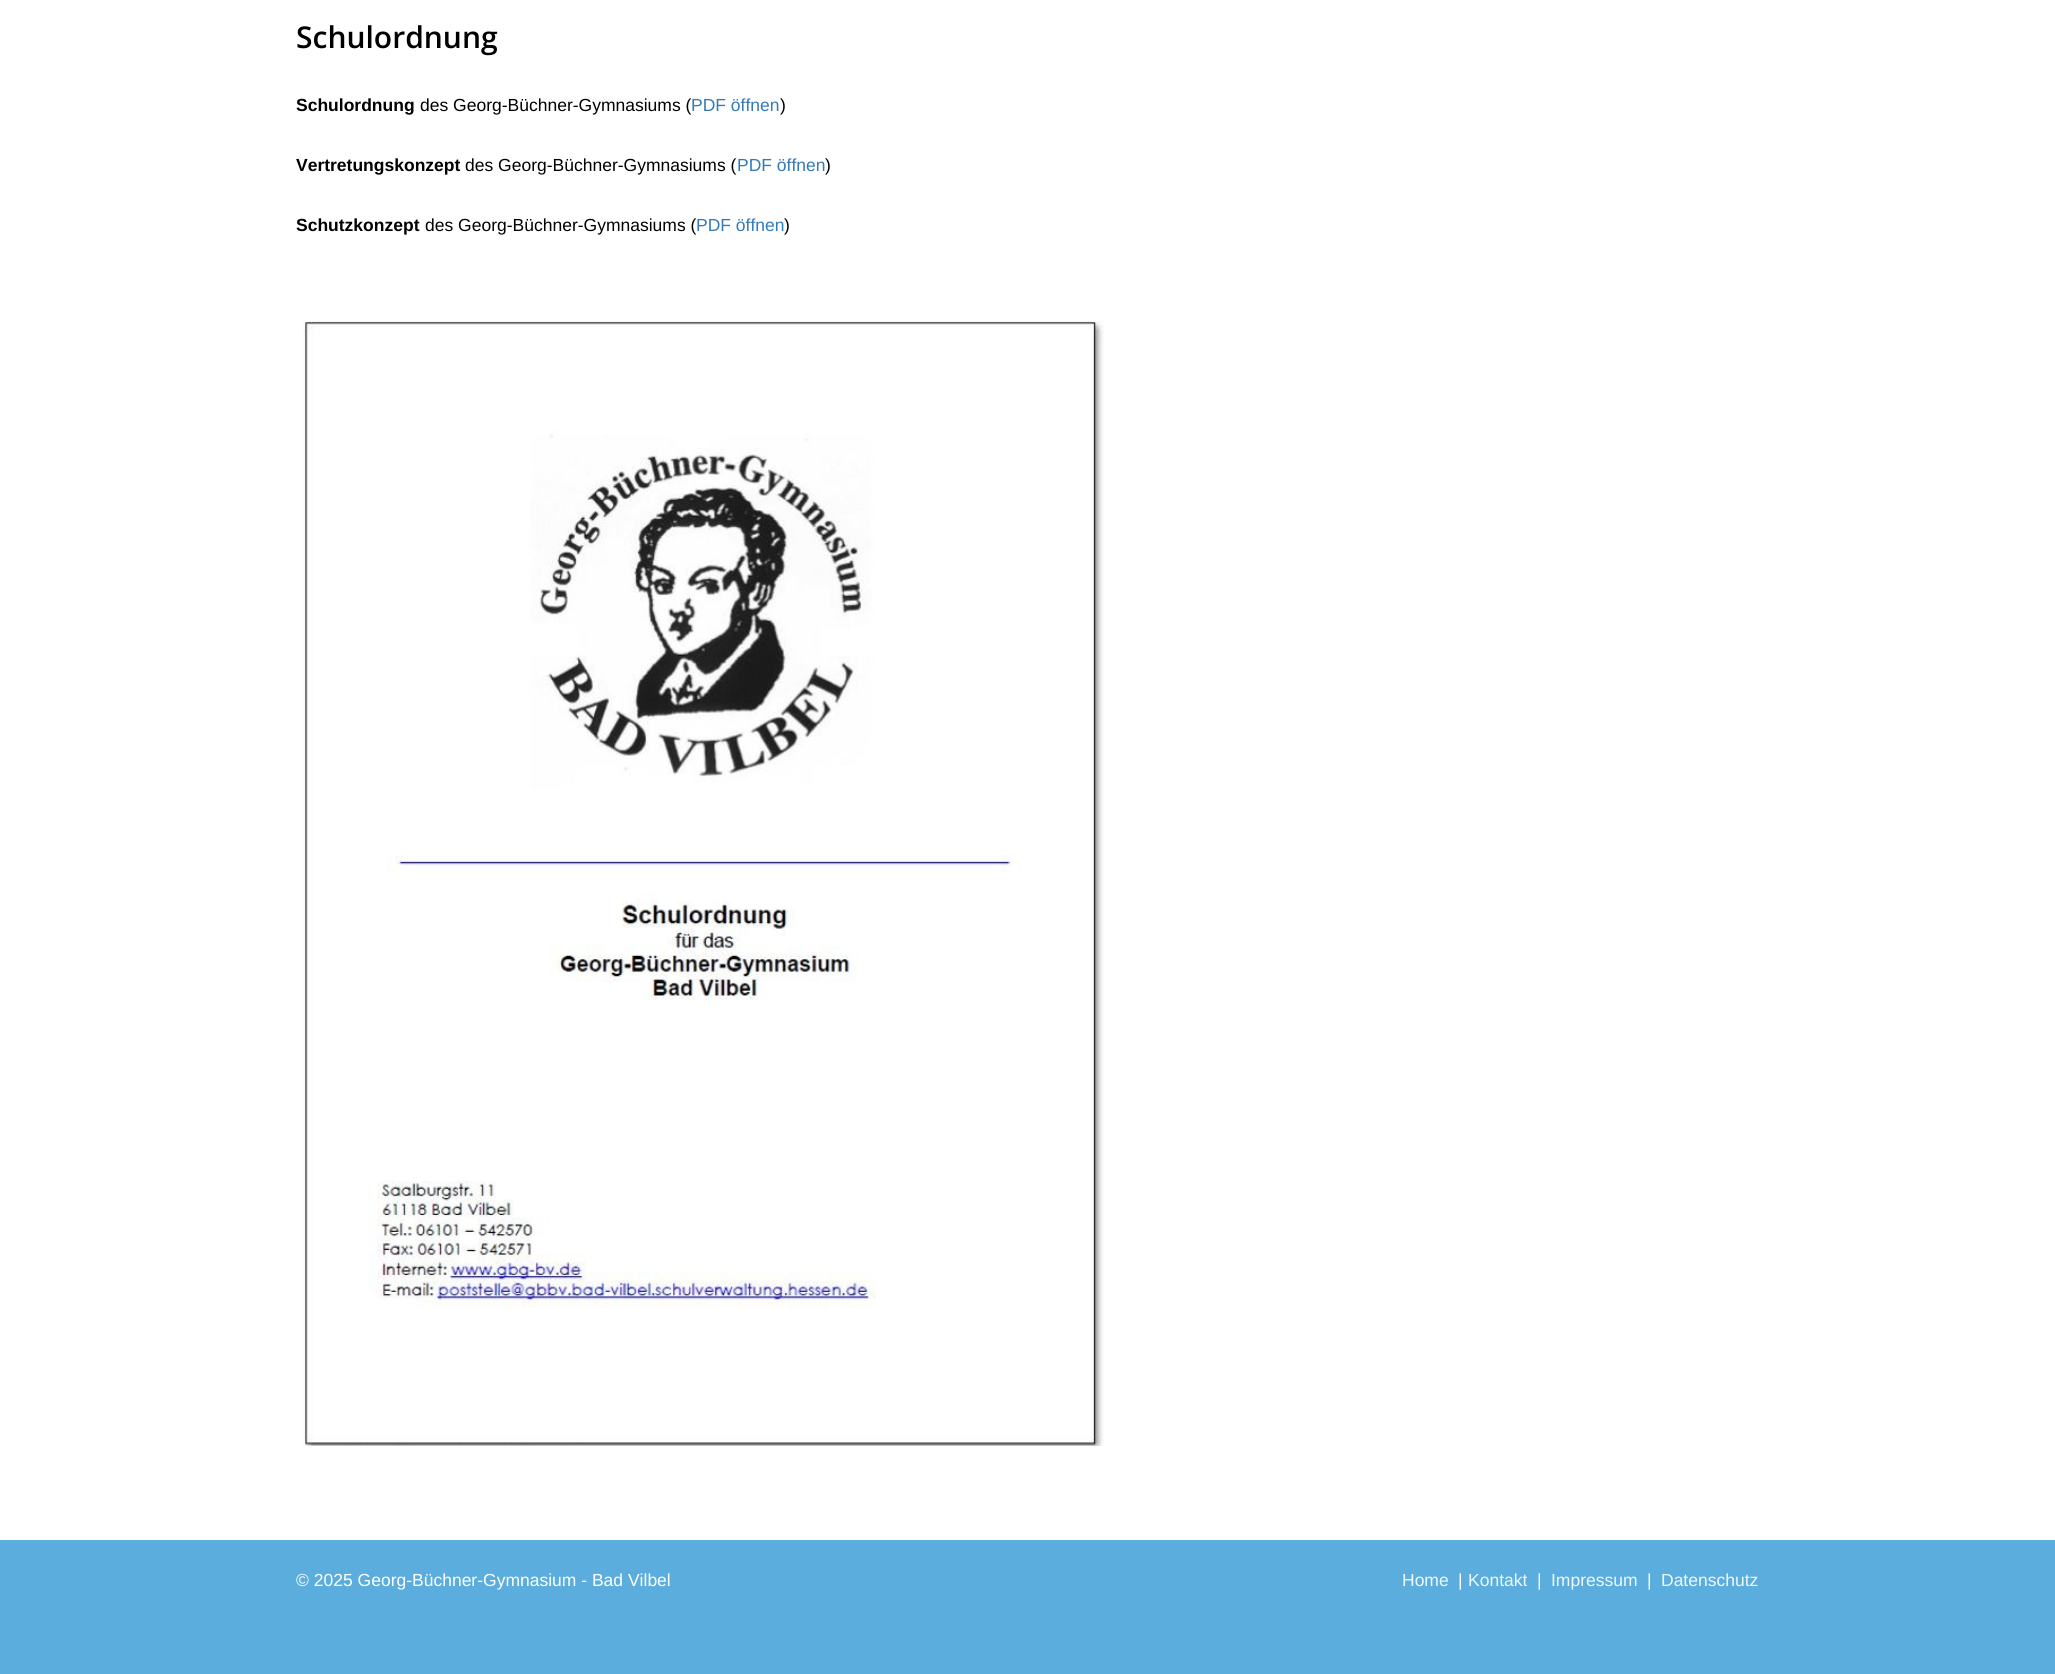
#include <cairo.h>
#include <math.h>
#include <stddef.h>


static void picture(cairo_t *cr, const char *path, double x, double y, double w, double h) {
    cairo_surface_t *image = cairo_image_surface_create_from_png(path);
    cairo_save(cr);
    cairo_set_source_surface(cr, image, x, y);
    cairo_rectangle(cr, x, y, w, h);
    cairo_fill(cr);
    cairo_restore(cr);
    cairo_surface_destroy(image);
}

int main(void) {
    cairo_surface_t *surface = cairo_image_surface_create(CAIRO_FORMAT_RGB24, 2055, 1674);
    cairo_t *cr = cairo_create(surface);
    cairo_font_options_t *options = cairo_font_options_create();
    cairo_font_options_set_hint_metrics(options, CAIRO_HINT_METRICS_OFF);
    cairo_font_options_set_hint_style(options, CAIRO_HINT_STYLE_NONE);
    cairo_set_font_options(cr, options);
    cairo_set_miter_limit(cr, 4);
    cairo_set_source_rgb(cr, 1, 1, 1);
    cairo_paint(cr);
    cairo_select_font_face(cr, "Open Sans SemiBold", CAIRO_FONT_SLANT_NORMAL, CAIRO_FONT_WEIGHT_NORMAL);
    cairo_set_font_size(cr, 30);
    cairo_set_source_rgb(cr, 0, 0, 0);
    cairo_move_to(cr, 296, 48);
    cairo_show_text(cr, "Schulordnung");
    cairo_select_font_face(cr, "Liberation Sans", CAIRO_FONT_SLANT_NORMAL, CAIRO_FONT_WEIGHT_BOLD);
    cairo_set_font_size(cr, 17.5);
    cairo_move_to(cr, 296, 111);
    cairo_show_text(cr, "Schulordnung");
    cairo_select_font_face(cr, "Liberation Sans", CAIRO_FONT_SLANT_NORMAL, CAIRO_FONT_WEIGHT_NORMAL);
    cairo_move_to(cr, 420, 111);
    cairo_show_text(cr, "des Georg-Büchner-Gymnasiums (");
    cairo_set_source_rgb(cr, 0.2, 0.478, 0.718);
    cairo_move_to(cr, 691, 111);
    cairo_show_text(cr, "PDF öffnen");
    cairo_set_source_rgb(cr, 0, 0, 0);
    cairo_move_to(cr, 780, 111);
    cairo_show_text(cr, ")");
    cairo_select_font_face(cr, "Liberation Sans", CAIRO_FONT_SLANT_NORMAL, CAIRO_FONT_WEIGHT_BOLD);
    cairo_move_to(cr, 296, 171);
    cairo_show_text(cr, "Vertretungskonzept");
    cairo_select_font_face(cr, "Liberation Sans", CAIRO_FONT_SLANT_NORMAL, CAIRO_FONT_WEIGHT_NORMAL);
    cairo_move_to(cr, 465, 171);
    cairo_show_text(cr, "des Georg-Büchner-Gymnasiums (");
    cairo_set_source_rgb(cr, 0.2, 0.478, 0.718);
    cairo_move_to(cr, 737, 171);
    cairo_show_text(cr, "PDF öffnen");
    cairo_set_source_rgb(cr, 0, 0, 0);
    cairo_move_to(cr, 825, 171);
    cairo_show_text(cr, ")");
    cairo_select_font_face(cr, "Liberation Sans", CAIRO_FONT_SLANT_NORMAL, CAIRO_FONT_WEIGHT_BOLD);
    cairo_move_to(cr, 296, 231);
    cairo_show_text(cr, "Schutzkonzept");
    cairo_select_font_face(cr, "Liberation Sans", CAIRO_FONT_SLANT_NORMAL, CAIRO_FONT_WEIGHT_NORMAL);
    cairo_move_to(cr, 425, 231);
    cairo_show_text(cr, "des Georg-Büchner-Gymnasiums (");
    cairo_set_source_rgb(cr, 0.2, 0.478, 0.718);
    cairo_move_to(cr, 696, 231);
    cairo_show_text(cr, "PDF öffnen");
    cairo_set_source_rgb(cr, 0, 0, 0);
    cairo_move_to(cr, 784, 231);
    cairo_show_text(cr, ")");
    picture(cr, "img1.png", 303, 321, 801, 1125);
    cairo_set_source_rgb(cr, 0.353, 0.678, 0.867);
    cairo_rectangle(cr, 0, 1540, 2055, 134);
    cairo_fill(cr);
    cairo_set_source_rgb(cr, 1, 1, 1);
    cairo_move_to(cr, 296, 1586);
    cairo_show_text(cr, "© 2025 Georg-Büchner-Gymnasium - Bad Vilbel");
    cairo_set_source_rgb(cr, 0.937, 0.969, 0.988);
    cairo_move_to(cr, 1402, 1586);
    cairo_show_text(cr, "Home");
    cairo_set_source_rgb(cr, 1, 1, 1);
    cairo_move_to(cr, 1458, 1586);
    cairo_show_text(cr, "|");
    cairo_set_source_rgb(cr, 0.937, 0.969, 0.988);
    cairo_move_to(cr, 1468, 1586);
    cairo_show_text(cr, "Kontakt");
    cairo_set_source_rgb(cr, 1, 1, 1);
    cairo_move_to(cr, 1537, 1586);
    cairo_show_text(cr, "|");
    cairo_set_source_rgb(cr, 0.937, 0.969, 0.988);
    cairo_move_to(cr, 1551, 1586);
    cairo_show_text(cr, "Impressum");
    cairo_set_source_rgb(cr, 1, 1, 1);
    cairo_move_to(cr, 1647, 1586);
    cairo_show_text(cr, "|");
    cairo_set_source_rgb(cr, 0.937, 0.969, 0.988);
    cairo_move_to(cr, 1661, 1586);
    cairo_show_text(cr, "Datenschutz");
    cairo_surface_write_to_png(surface, "page.png");
    cairo_font_options_destroy(options);
    cairo_destroy(cr);
    cairo_surface_destroy(surface);
    return 0;
}
